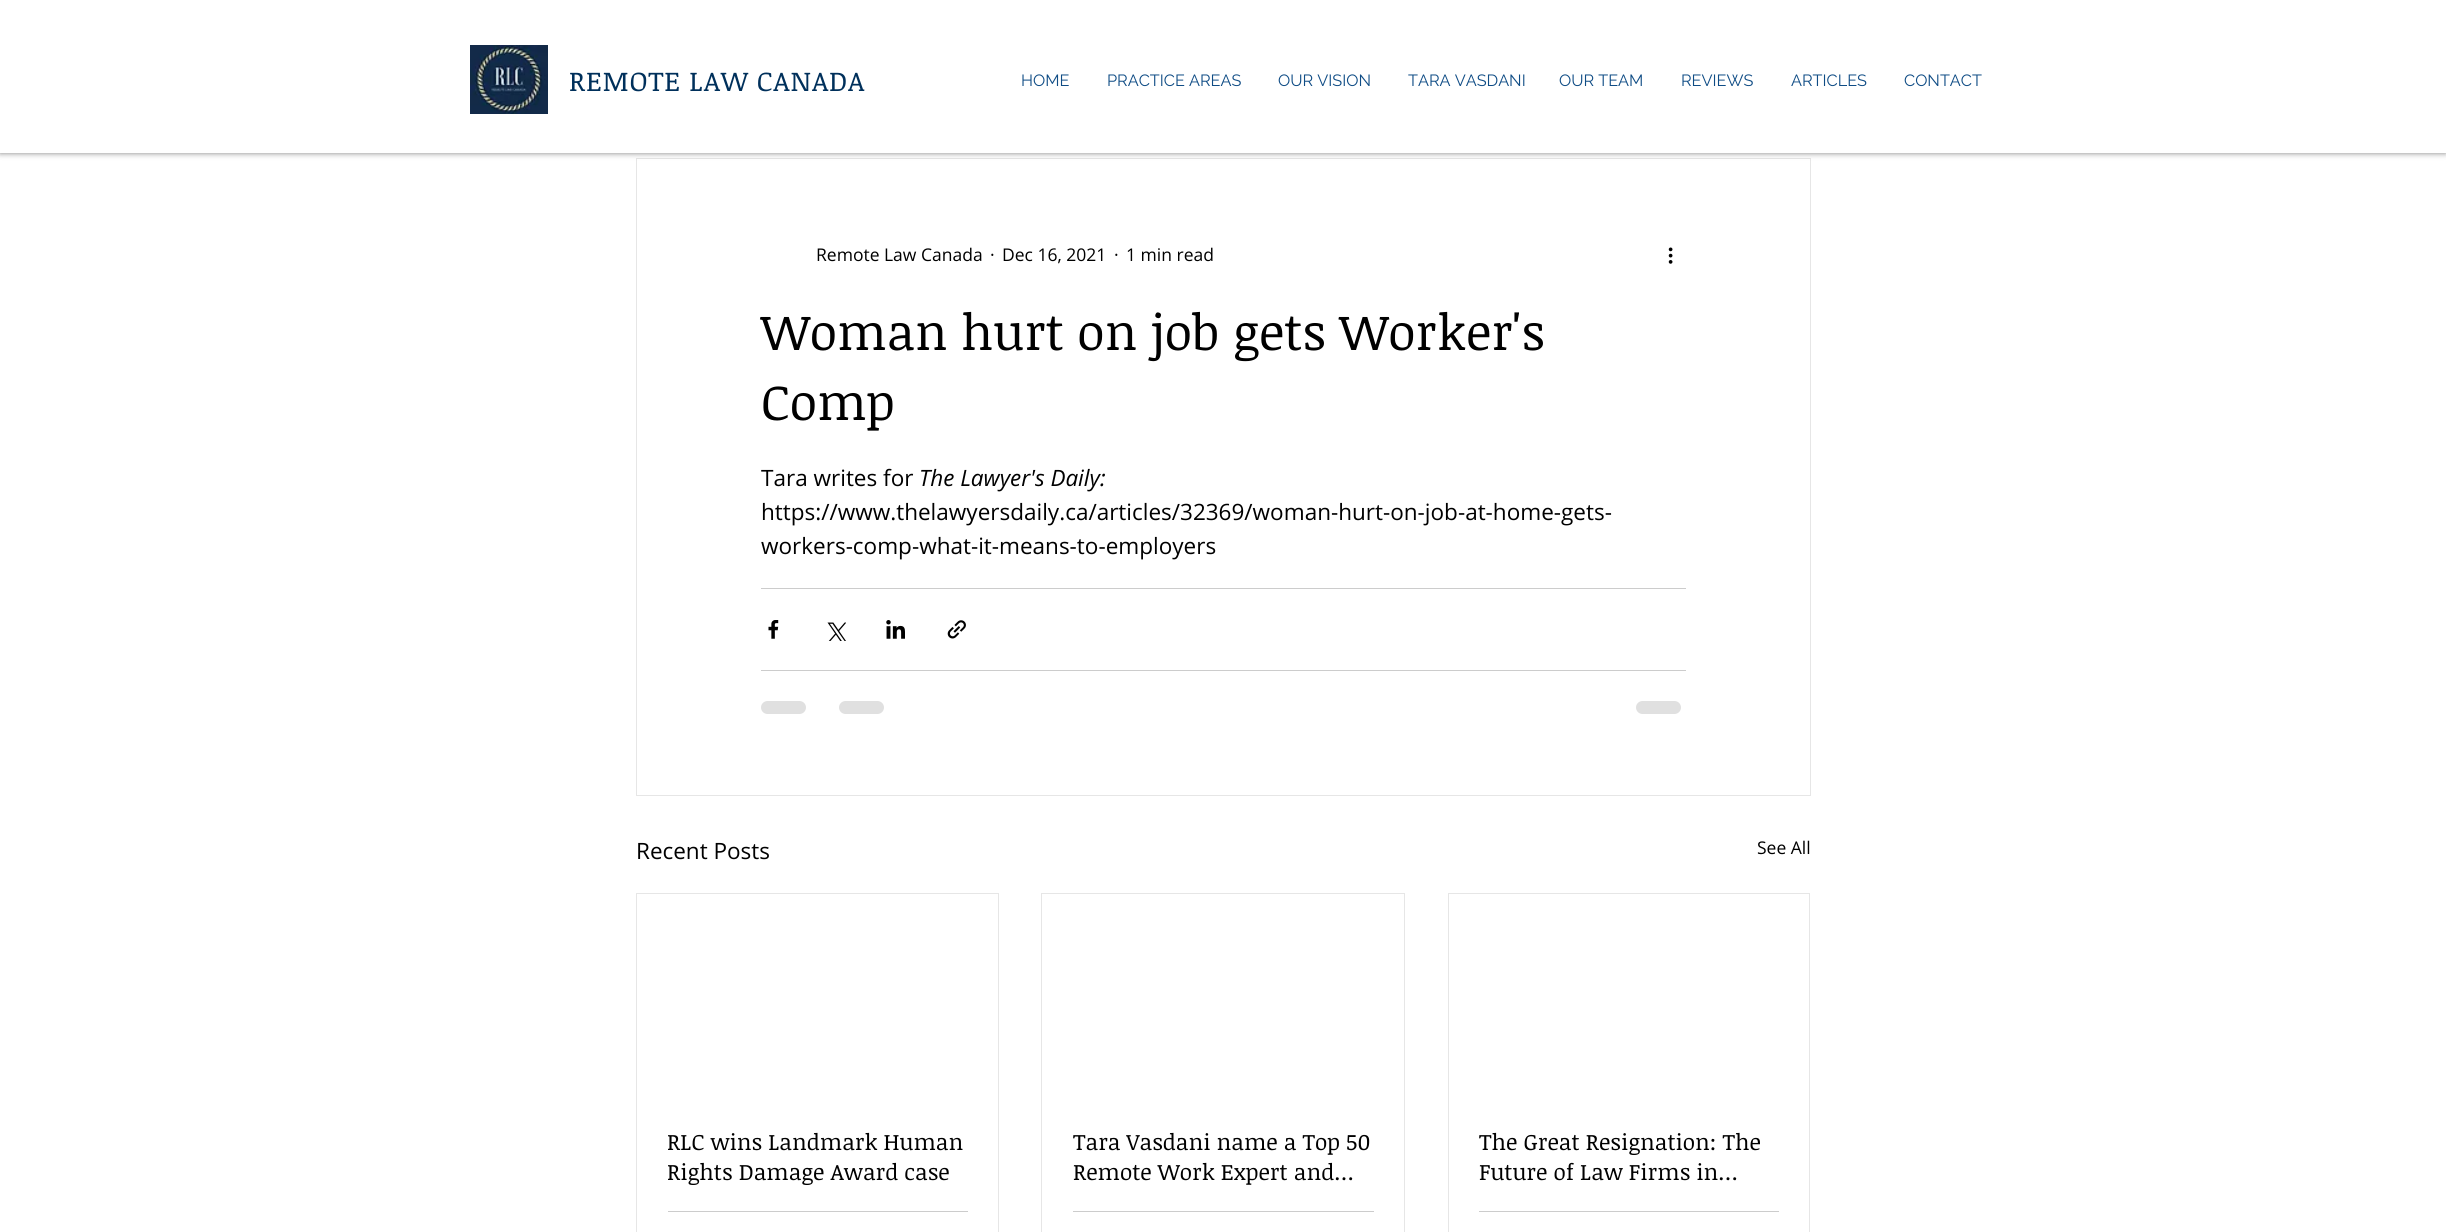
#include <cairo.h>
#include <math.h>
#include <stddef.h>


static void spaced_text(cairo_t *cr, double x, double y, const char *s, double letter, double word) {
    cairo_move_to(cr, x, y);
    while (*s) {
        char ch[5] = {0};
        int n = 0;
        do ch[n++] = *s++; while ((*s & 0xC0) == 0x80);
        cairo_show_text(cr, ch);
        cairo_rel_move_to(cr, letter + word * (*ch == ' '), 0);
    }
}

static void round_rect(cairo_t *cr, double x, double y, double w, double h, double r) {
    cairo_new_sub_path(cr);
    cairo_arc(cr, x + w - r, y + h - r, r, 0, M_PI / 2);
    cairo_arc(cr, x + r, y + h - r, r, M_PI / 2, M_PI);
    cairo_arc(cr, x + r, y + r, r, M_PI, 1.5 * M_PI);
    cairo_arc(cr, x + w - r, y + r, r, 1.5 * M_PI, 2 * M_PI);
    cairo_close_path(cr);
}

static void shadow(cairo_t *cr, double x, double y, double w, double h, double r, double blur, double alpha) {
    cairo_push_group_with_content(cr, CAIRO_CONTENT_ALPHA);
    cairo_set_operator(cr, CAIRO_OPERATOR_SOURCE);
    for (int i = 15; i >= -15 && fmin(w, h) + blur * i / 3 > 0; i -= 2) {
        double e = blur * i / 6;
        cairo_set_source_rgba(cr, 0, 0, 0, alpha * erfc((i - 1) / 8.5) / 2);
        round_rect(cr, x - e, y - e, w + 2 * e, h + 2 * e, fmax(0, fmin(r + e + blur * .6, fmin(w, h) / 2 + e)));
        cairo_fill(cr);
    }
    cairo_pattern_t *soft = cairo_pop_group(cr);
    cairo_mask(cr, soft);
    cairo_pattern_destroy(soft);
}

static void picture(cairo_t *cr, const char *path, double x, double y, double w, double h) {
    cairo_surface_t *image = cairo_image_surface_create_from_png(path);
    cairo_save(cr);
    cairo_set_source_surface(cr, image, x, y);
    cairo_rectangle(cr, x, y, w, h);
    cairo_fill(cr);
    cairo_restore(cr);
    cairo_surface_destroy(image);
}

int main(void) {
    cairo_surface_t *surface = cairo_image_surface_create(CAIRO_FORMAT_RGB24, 2446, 1232);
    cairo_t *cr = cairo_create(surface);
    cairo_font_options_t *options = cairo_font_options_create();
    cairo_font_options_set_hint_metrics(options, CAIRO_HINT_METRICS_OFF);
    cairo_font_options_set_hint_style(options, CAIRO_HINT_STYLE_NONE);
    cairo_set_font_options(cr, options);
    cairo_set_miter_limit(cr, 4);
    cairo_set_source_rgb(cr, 1, 1, 1);
    cairo_paint(cr);
    cairo_rectangle(cr, 636.5, 158.5, 1174, 637);
    cairo_set_source_rgb(cr, 0.902, 0.902, 0.902);
    cairo_set_line_width(cr, 1);
    cairo_stroke(cr);
    cairo_set_source_rgb(cr, 0, 0, 0);
    shadow(cr, 0, 0, 2446, 153, 0, 3, 0.5);
    cairo_set_source_rgb(cr, 1, 1, 1);
    cairo_rectangle(cr, 0, 0, 2446, 153);
    cairo_fill(cr);
    picture(cr, "img1.png", 470, 45, 78, 69);
    cairo_select_font_face(cr, "Noticia Text", CAIRO_FONT_SLANT_NORMAL, CAIRO_FONT_WEIGHT_NORMAL);
    cairo_set_font_size(cr, 27.5);
    cairo_set_source_rgb(cr, 0, 0.188, 0.357);
    spaced_text(cr, 569, 91, "REMOTE LAW CANADA", 0.8, 0);
    cairo_select_font_face(cr, "Raleway", CAIRO_FONT_SLANT_NORMAL, CAIRO_FONT_WEIGHT_NORMAL);
    cairo_set_font_size(cr, 16.25);
    cairo_set_source_rgb(cr, 0.059, 0.298, 0.522);
    cairo_move_to(cr, 1021, 86);
    cairo_show_text(cr, "HOME");
    cairo_move_to(cr, 1107, 86);
    cairo_show_text(cr, "PRACTICE AREAS");
    cairo_move_to(cr, 1278, 86);
    cairo_show_text(cr, "OUR VISION");
    cairo_move_to(cr, 1408, 86);
    cairo_show_text(cr, "TARA VASDANI");
    cairo_move_to(cr, 1559, 86);
    cairo_show_text(cr, "OUR TEAM");
    cairo_move_to(cr, 1681, 86);
    cairo_show_text(cr, "REVIEWS");
    cairo_move_to(cr, 1791, 86);
    cairo_show_text(cr, "ARTICLES");
    cairo_move_to(cr, 1904, 86);
    cairo_show_text(cr, "CONTACT");
    cairo_select_font_face(cr, "Open Sans", CAIRO_FONT_SLANT_NORMAL, CAIRO_FONT_WEIGHT_NORMAL);
    cairo_set_font_size(cr, 17.5);
    cairo_set_source_rgb(cr, 0, 0, 0);
    cairo_move_to(cr, 816, 261);
    cairo_show_text(cr, "Remote Law Canada");
    cairo_move_to(cr, 990, 261);
    cairo_show_text(cr, "·");
    cairo_move_to(cr, 1002, 261);
    cairo_show_text(cr, "Dec 16, 2021");
    cairo_move_to(cr, 1114, 261);
    cairo_show_text(cr, "·");
    cairo_move_to(cr, 1126, 261);
    cairo_show_text(cr, "1 min read");
    picture(cr, "img2.png", 1668, 247, 5, 17);
    cairo_select_font_face(cr, "Noticia Text", CAIRO_FONT_SLANT_NORMAL, CAIRO_FONT_WEIGHT_NORMAL);
    cairo_set_font_size(cr, 50);
    cairo_move_to(cr, 761, 350);
    cairo_show_text(cr, "Woman hurt on job gets Worker's");
    cairo_move_to(cr, 761, 420);
    cairo_show_text(cr, "Comp");
    cairo_select_font_face(cr, "Open Sans", CAIRO_FONT_SLANT_NORMAL, CAIRO_FONT_WEIGHT_NORMAL);
    cairo_set_font_size(cr, 22.5);
    cairo_move_to(cr, 761, 486);
    cairo_show_text(cr, "Tara writes for");
    cairo_select_font_face(cr, "Open Sans", CAIRO_FONT_SLANT_ITALIC, CAIRO_FONT_WEIGHT_NORMAL);
    cairo_move_to(cr, 919, 486);
    cairo_show_text(cr, "The Lawyer's Daily:");
    cairo_select_font_face(cr, "Open Sans", CAIRO_FONT_SLANT_NORMAL, CAIRO_FONT_WEIGHT_NORMAL);
    cairo_move_to(cr, 761, 520);
    cairo_show_text(cr, "https://www.thelawyersdaily.ca/articles/32369/woman-hurt-on-job-at-home-gets-");
    cairo_move_to(cr, 761, 554);
    cairo_show_text(cr, "workers-comp-what-it-means-to-employers");
    cairo_set_source_rgb(cr, 0.8, 0.8, 0.8);
    cairo_rectangle(cr, 761, 588, 925, 1);
    cairo_fill(cr);
    picture(cr, "img3.png", 768, 620, 11, 19);
    picture(cr, "img4.png", 827, 622, 19, 19);
    picture(cr, "img5.png", 886, 620, 19, 19);
    picture(cr, "img6.png", 947, 620, 19, 19);
    cairo_rectangle(cr, 761, 670, 925, 1);
    cairo_fill(cr);
    cairo_set_source_rgb(cr, 0.878, 0.878, 0.878);
    round_rect(cr, 761, 701, 45, 13, 6.5);
    cairo_fill(cr);
    round_rect(cr, 839, 701, 45, 13, 6.5);
    cairo_fill(cr);
    round_rect(cr, 1636, 701, 45, 13, 6.5);
    cairo_fill(cr);
    cairo_set_source_rgb(cr, 0, 0, 0);
    cairo_move_to(cr, 636, 859);
    cairo_show_text(cr, "Recent Posts");
    cairo_set_font_size(cr, 17.5);
    cairo_move_to(cr, 1757, 854);
    cairo_show_text(cr, "See All");
    cairo_rectangle(cr, 636.5, 893.5, 362, 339);
    cairo_set_source_rgb(cr, 0.902, 0.902, 0.902);
    cairo_stroke(cr);
    cairo_save(cr);
    cairo_rectangle(cr, 668, 1126, 300, 60);
    cairo_clip(cr);
    cairo_select_font_face(cr, "Noticia Text", CAIRO_FONT_SLANT_NORMAL, CAIRO_FONT_WEIGHT_NORMAL);
    cairo_set_font_size(cr, 22.5);
    cairo_set_source_rgb(cr, 0, 0, 0);
    cairo_move_to(cr, 667, 1150);
    cairo_show_text(cr, "RLC wins Landmark Human");
    cairo_move_to(cr, 667, 1180);
    cairo_show_text(cr, "Rights Damage Award case");
    cairo_restore(cr);
    cairo_set_source_rgb(cr, 0.8, 0.8, 0.8);
    cairo_rectangle(cr, 668, 1211, 300, 1);
    cairo_fill(cr);
    cairo_rectangle(cr, 1041.5, 893.5, 363, 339);
    cairo_set_source_rgb(cr, 0.902, 0.902, 0.902);
    cairo_stroke(cr);
    cairo_select_font_face(cr, "Noticia Text", CAIRO_FONT_SLANT_NORMAL, CAIRO_FONT_WEIGHT_NORMAL);
    cairo_set_font_size(cr, 22.5);
    cairo_set_source_rgb(cr, 0, 0, 0);
    cairo_move_to(cr, 1073, 1150);
    cairo_show_text(cr, "Tara Vasdani name a Top 50");
    cairo_move_to(cr, 1073, 1180);
    cairo_show_text(cr, "Remote Work Expert and…");
    cairo_set_source_rgb(cr, 0.8, 0.8, 0.8);
    cairo_rectangle(cr, 1073, 1211, 301, 1);
    cairo_fill(cr);
    cairo_rectangle(cr, 1448.5, 893.5, 361, 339);
    cairo_set_source_rgb(cr, 0.902, 0.902, 0.902);
    cairo_stroke(cr);
    cairo_save(cr);
    cairo_rectangle(cr, 1479, 1126, 300, 60);
    cairo_clip(cr);
    cairo_set_source_rgb(cr, 0, 0, 0);
    cairo_move_to(cr, 1479, 1150);
    cairo_show_text(cr, "The Great Resignation: The");
    cairo_restore(cr);
    cairo_set_source_rgb(cr, 0, 0, 0);
    cairo_move_to(cr, 1479, 1180);
    cairo_show_text(cr, "Future of Law Firms in…");
    cairo_set_source_rgb(cr, 0.8, 0.8, 0.8);
    cairo_rectangle(cr, 1479, 1211, 300, 1);
    cairo_fill(cr);
    cairo_surface_write_to_png(surface, "page.png");
    cairo_font_options_destroy(options);
    cairo_destroy(cr);
    cairo_surface_destroy(surface);
    return 0;
}
